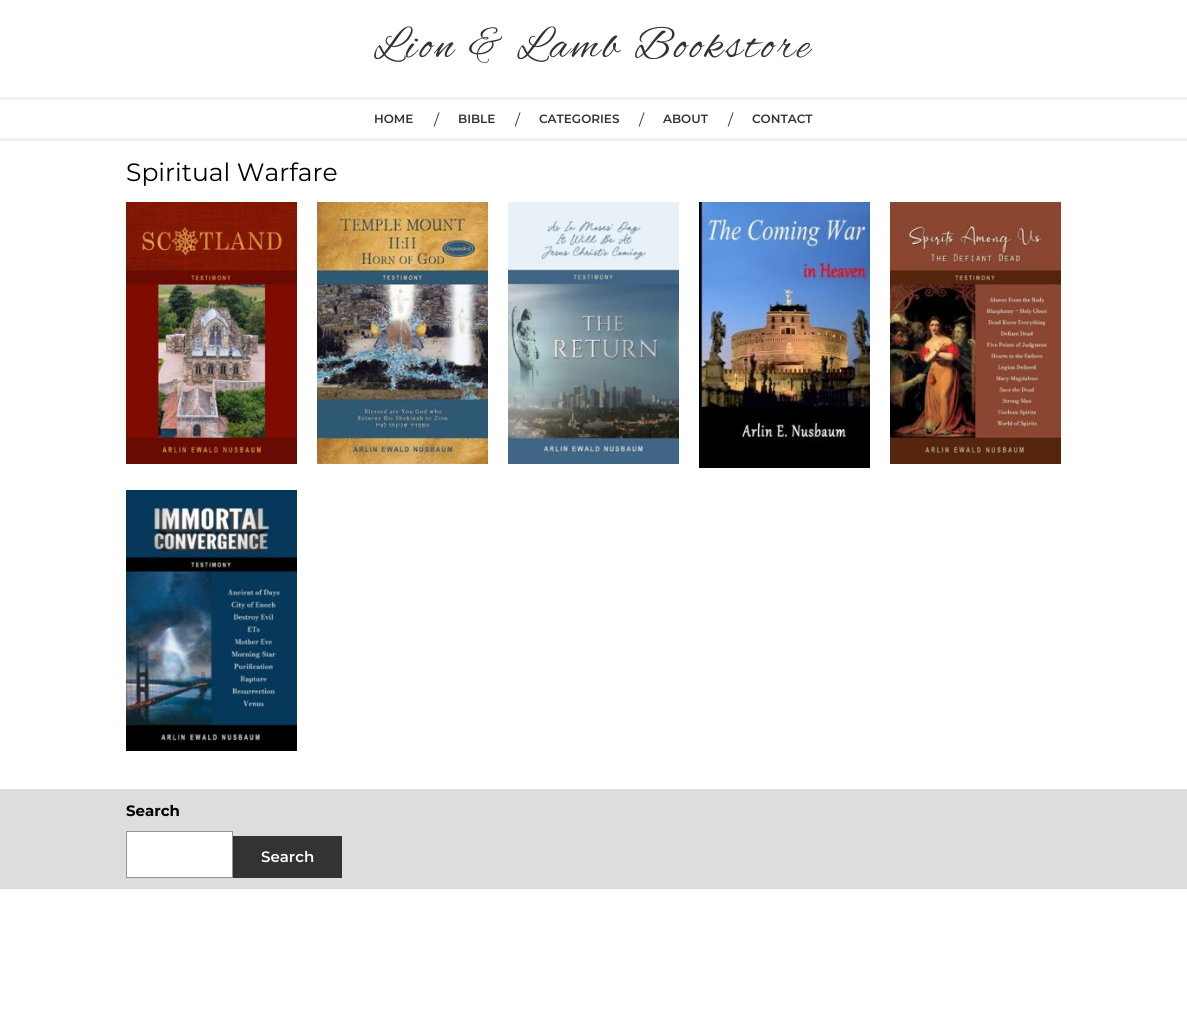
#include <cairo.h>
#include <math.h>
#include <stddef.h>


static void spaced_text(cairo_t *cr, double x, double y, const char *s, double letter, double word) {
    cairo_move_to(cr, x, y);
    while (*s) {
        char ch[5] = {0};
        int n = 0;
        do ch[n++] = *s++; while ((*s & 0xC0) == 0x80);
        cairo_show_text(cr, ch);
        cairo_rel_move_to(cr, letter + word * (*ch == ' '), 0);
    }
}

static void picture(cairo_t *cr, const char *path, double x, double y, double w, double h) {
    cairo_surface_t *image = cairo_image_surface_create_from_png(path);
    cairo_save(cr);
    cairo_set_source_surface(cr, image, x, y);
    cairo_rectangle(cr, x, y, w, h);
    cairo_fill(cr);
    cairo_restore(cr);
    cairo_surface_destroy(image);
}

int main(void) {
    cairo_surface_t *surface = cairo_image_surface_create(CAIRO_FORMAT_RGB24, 1187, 1033);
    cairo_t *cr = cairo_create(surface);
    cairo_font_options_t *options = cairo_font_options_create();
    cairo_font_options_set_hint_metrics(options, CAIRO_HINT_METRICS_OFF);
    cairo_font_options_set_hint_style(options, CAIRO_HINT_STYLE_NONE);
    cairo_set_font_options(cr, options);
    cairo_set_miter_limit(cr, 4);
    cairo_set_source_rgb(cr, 1, 1, 1);
    cairo_paint(cr);
    cairo_set_source_rgb(cr, 0.949, 0.949, 0.949);
    cairo_rectangle(cr, 0, 97, 1187, 3);
    cairo_fill(cr);
    cairo_select_font_face(cr, "Alex Brush", CAIRO_FONT_SLANT_NORMAL, CAIRO_FONT_WEIGHT_NORMAL);
    cairo_set_font_size(cr, 45);
    cairo_set_source_rgb(cr, 0.2, 0.2, 0.2);
    spaced_text(cr, 374, 57, "Lion & Lamb Bookstore", 3, 0);
    cairo_set_source_rgb(cr, 0.949, 0.949, 0.949);
    cairo_rectangle(cr, 0, 138, 1187, 3);
    cairo_fill(cr);
    cairo_select_font_face(cr, "Montserrat SemiBold", CAIRO_FONT_SLANT_NORMAL, CAIRO_FONT_WEIGHT_NORMAL);
    cairo_set_font_size(cr, 12);
    cairo_set_source_rgb(cr, 0.2, 0.2, 0.2);
    cairo_move_to(cr, 374, 123);
    cairo_show_text(cr, "HOME");
    cairo_select_font_face(cr, "Montserrat", CAIRO_FONT_SLANT_NORMAL, CAIRO_FONT_WEIGHT_NORMAL);
    cairo_set_font_size(cr, 15);
    cairo_move_to(cr, 434, 125);
    cairo_show_text(cr, "/");
    cairo_select_font_face(cr, "Montserrat SemiBold", CAIRO_FONT_SLANT_NORMAL, CAIRO_FONT_WEIGHT_NORMAL);
    cairo_set_font_size(cr, 12);
    cairo_move_to(cr, 458, 123);
    cairo_show_text(cr, "BIBLE");
    cairo_select_font_face(cr, "Montserrat", CAIRO_FONT_SLANT_NORMAL, CAIRO_FONT_WEIGHT_NORMAL);
    cairo_set_font_size(cr, 15);
    cairo_move_to(cr, 515, 125);
    cairo_show_text(cr, "/");
    cairo_select_font_face(cr, "Montserrat SemiBold", CAIRO_FONT_SLANT_NORMAL, CAIRO_FONT_WEIGHT_NORMAL);
    cairo_set_font_size(cr, 12);
    cairo_move_to(cr, 539, 123);
    cairo_show_text(cr, "CATEGORIES");
    cairo_select_font_face(cr, "Montserrat", CAIRO_FONT_SLANT_NORMAL, CAIRO_FONT_WEIGHT_NORMAL);
    cairo_set_font_size(cr, 15);
    cairo_move_to(cr, 639, 125);
    cairo_show_text(cr, "/");
    cairo_select_font_face(cr, "Montserrat SemiBold", CAIRO_FONT_SLANT_NORMAL, CAIRO_FONT_WEIGHT_NORMAL);
    cairo_set_font_size(cr, 12);
    cairo_move_to(cr, 663, 123);
    cairo_show_text(cr, "ABOUT");
    cairo_select_font_face(cr, "Montserrat", CAIRO_FONT_SLANT_NORMAL, CAIRO_FONT_WEIGHT_NORMAL);
    cairo_set_font_size(cr, 15);
    cairo_move_to(cr, 728, 125);
    cairo_show_text(cr, "/");
    cairo_select_font_face(cr, "Montserrat SemiBold", CAIRO_FONT_SLANT_NORMAL, CAIRO_FONT_WEIGHT_NORMAL);
    cairo_set_font_size(cr, 12);
    cairo_move_to(cr, 752, 123);
    cairo_show_text(cr, "CONTACT");
    cairo_select_font_face(cr, "Montserrat", CAIRO_FONT_SLANT_NORMAL, CAIRO_FONT_WEIGHT_NORMAL);
    cairo_set_font_size(cr, 25);
    cairo_set_source_rgb(cr, 0, 0, 0);
    cairo_move_to(cr, 126, 181);
    cairo_show_text(cr, "Spiritual Warfare");
    picture(cr, "img1.png", 126, 202, 171, 262);
    picture(cr, "img2.png", 317, 202, 171, 262);
    picture(cr, "img3.png", 508, 202, 171, 262);
    picture(cr, "img4.png", 699, 202, 171, 266);
    picture(cr, "img5.png", 890, 202, 171, 262);
    picture(cr, "img6.png", 126, 490, 171, 261);
    cairo_set_source_rgb(cr, 0.871, 0.867, 0.867);
    cairo_rectangle(cr, 0, 789, 1187, 100);
    cairo_fill(cr);
    cairo_select_font_face(cr, "Montserrat", CAIRO_FONT_SLANT_NORMAL, CAIRO_FONT_WEIGHT_BOLD);
    cairo_set_font_size(cr, 15);
    cairo_set_source_rgb(cr, 0, 0, 0);
    cairo_move_to(cr, 126, 816);
    cairo_show_text(cr, "Search");
    cairo_set_source_rgb(cr, 1, 1, 1);
    cairo_rectangle(cr, 126.5, 831.5, 106, 46);
    cairo_fill_preserve(cr);
    cairo_set_source_rgb(cr, 0.58, 0.58, 0.58);
    cairo_set_line_width(cr, 1);
    cairo_stroke(cr);
    cairo_set_source_rgb(cr, 0.2, 0.2, 0.2);
    cairo_rectangle(cr, 233, 836, 109, 42);
    cairo_fill(cr);
    cairo_select_font_face(cr, "Montserrat SemiBold", CAIRO_FONT_SLANT_NORMAL, CAIRO_FONT_WEIGHT_NORMAL);
    cairo_set_source_rgb(cr, 1, 1, 1);
    cairo_move_to(cr, 261, 862);
    cairo_show_text(cr, "Search");
    cairo_surface_write_to_png(surface, "page.png");
    cairo_font_options_destroy(options);
    cairo_destroy(cr);
    cairo_surface_destroy(surface);
    return 0;
}
